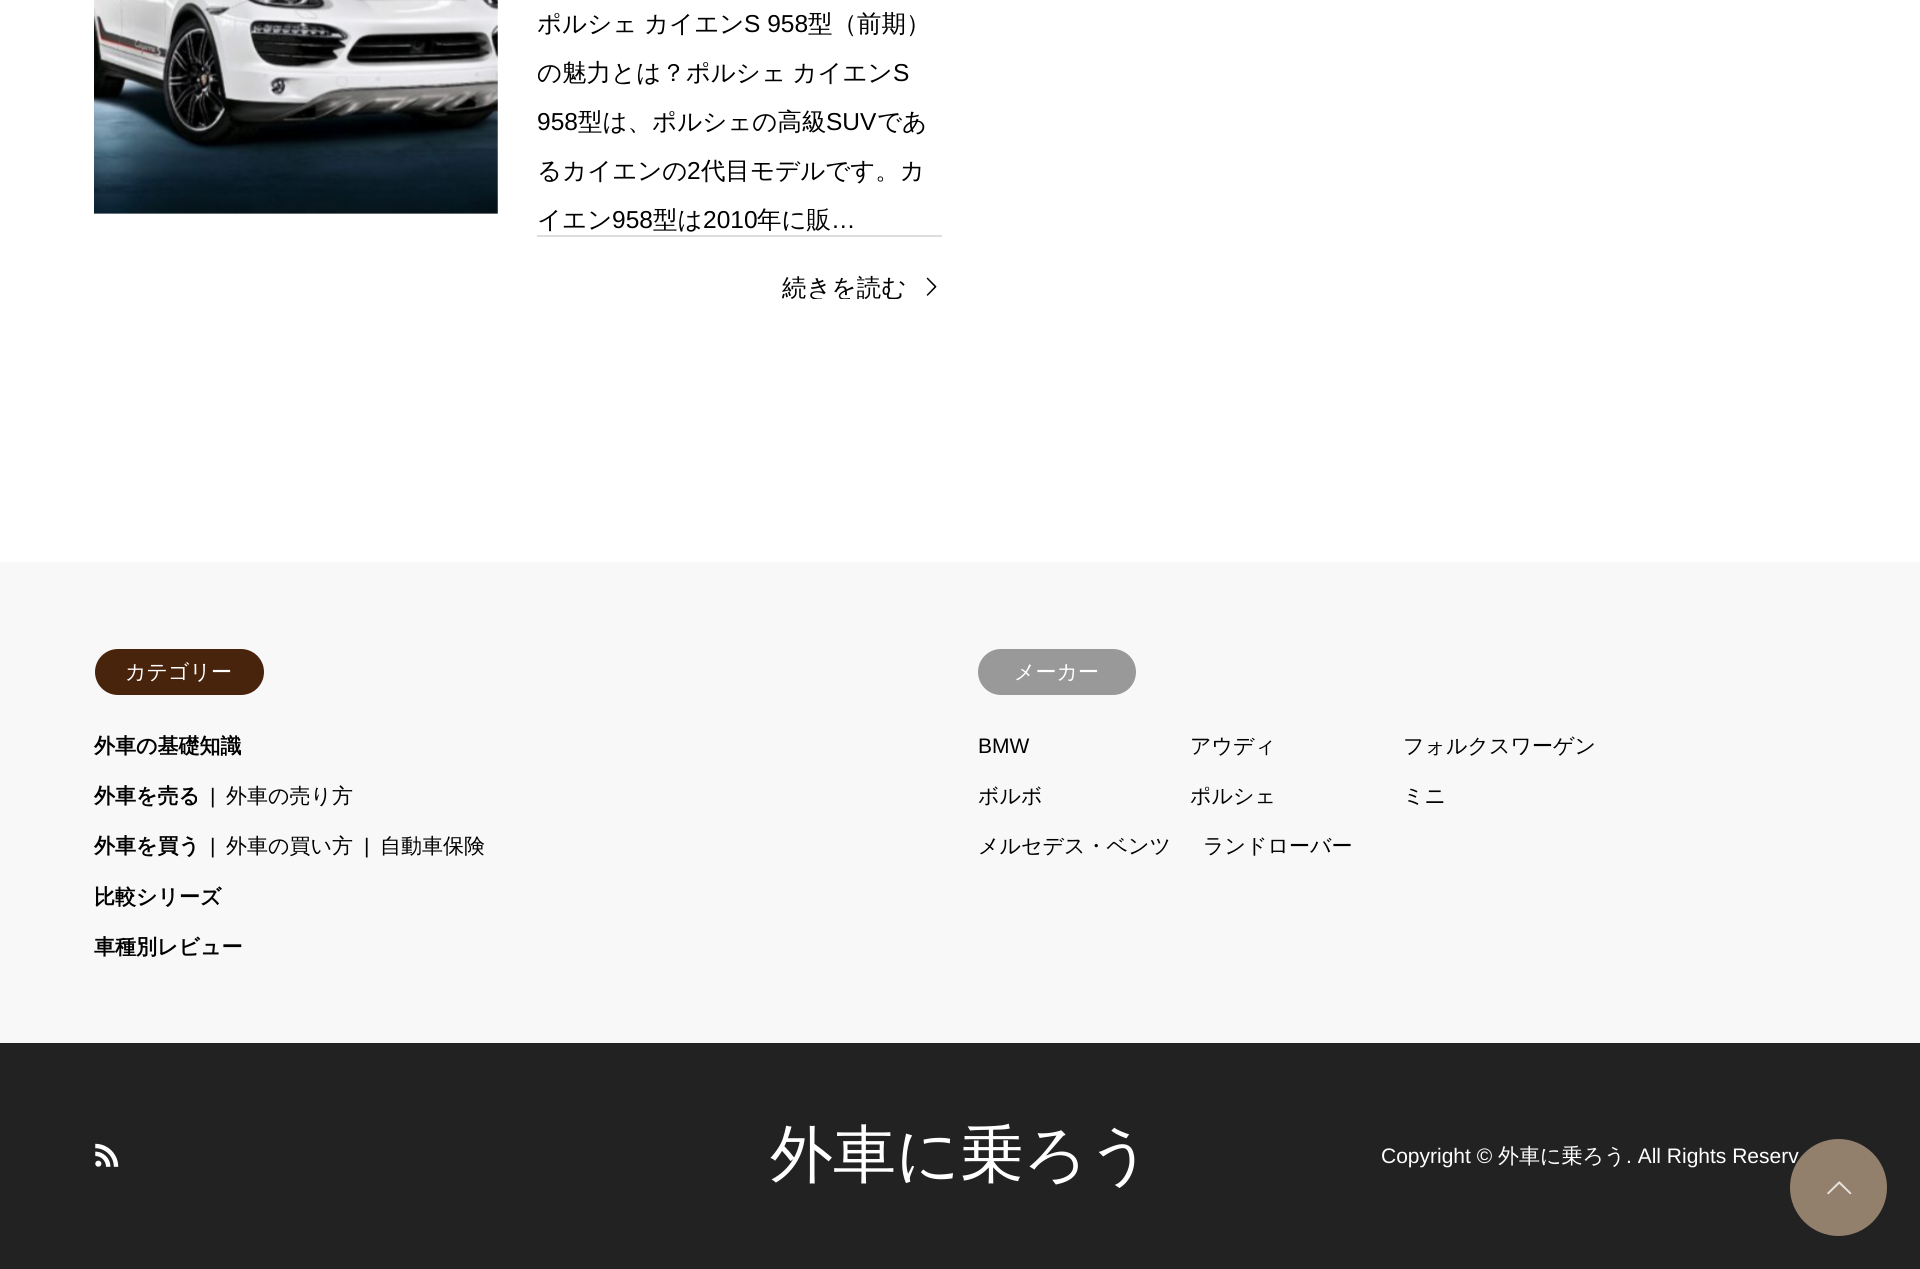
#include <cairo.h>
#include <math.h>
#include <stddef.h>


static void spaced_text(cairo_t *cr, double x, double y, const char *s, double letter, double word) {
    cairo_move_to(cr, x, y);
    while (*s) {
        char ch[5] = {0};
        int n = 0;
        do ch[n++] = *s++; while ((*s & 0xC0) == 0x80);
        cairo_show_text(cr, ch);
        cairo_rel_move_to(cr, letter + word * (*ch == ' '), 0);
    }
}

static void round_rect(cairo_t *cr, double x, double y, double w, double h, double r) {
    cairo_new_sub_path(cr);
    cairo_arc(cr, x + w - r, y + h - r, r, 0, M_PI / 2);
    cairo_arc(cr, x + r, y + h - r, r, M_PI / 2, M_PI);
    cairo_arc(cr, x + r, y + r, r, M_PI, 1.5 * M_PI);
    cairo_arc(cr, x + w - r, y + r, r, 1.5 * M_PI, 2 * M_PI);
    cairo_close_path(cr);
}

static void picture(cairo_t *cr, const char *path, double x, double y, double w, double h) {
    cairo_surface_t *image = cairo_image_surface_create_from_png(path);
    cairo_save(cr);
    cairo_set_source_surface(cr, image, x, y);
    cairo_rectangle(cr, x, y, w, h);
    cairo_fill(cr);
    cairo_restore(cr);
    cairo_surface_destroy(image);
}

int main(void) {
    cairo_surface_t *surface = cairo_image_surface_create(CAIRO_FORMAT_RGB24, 1920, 1269);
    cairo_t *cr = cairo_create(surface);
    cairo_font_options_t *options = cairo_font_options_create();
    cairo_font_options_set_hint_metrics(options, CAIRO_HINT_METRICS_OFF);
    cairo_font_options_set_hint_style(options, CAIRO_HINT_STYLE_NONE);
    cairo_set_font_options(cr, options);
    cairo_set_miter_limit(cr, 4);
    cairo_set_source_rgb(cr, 1, 1, 1);
    cairo_paint(cr);
    picture(cr, "img1.png", 94, 0, 404, 214);
    cairo_select_font_face(cr, "WenQuanYi Zen Hei Medium", CAIRO_FONT_SLANT_NORMAL, CAIRO_FONT_WEIGHT_NORMAL);
    cairo_set_font_size(cr, 24.5);
    cairo_set_source_rgb(cr, 0, 0, 0);
    cairo_move_to(cr, 537, 32);
    cairo_show_text(cr, "ポルシェ");
    cairo_move_to(cr, 644, 32);
    cairo_show_text(cr, "カイエン");
    cairo_select_font_face(cr, "Liberation Sans", CAIRO_FONT_SLANT_NORMAL, CAIRO_FONT_WEIGHT_NORMAL);
    cairo_move_to(cr, 744, 32);
    cairo_show_text(cr, "S 958");
    cairo_select_font_face(cr, "WenQuanYi Zen Hei Medium", CAIRO_FONT_SLANT_NORMAL, CAIRO_FONT_WEIGHT_NORMAL);
    cairo_move_to(cr, 808, 32);
    cairo_show_text(cr, "型（前期）");
    spaced_text(cr, 537, 81, "の魅力とは？ポルシェ カイエン", 0, -1);
    cairo_select_font_face(cr, "Liberation Sans", CAIRO_FONT_SLANT_NORMAL, CAIRO_FONT_WEIGHT_NORMAL);
    cairo_move_to(cr, 893, 81);
    cairo_show_text(cr, "S");
    cairo_move_to(cr, 537, 130);
    cairo_show_text(cr, "958");
    cairo_select_font_face(cr, "WenQuanYi Zen Hei Medium", CAIRO_FONT_SLANT_NORMAL, CAIRO_FONT_WEIGHT_NORMAL);
    cairo_move_to(cr, 578, 130);
    cairo_show_text(cr, "型は、ポルシェの高級");
    cairo_select_font_face(cr, "Liberation Sans", CAIRO_FONT_SLANT_NORMAL, CAIRO_FONT_WEIGHT_NORMAL);
    cairo_move_to(cr, 826, 130);
    cairo_show_text(cr, "SUV");
    cairo_select_font_face(cr, "WenQuanYi Zen Hei Medium", CAIRO_FONT_SLANT_NORMAL, CAIRO_FONT_WEIGHT_NORMAL);
    cairo_move_to(cr, 877, 130);
    cairo_show_text(cr, "であ");
    cairo_move_to(cr, 537, 179);
    cairo_show_text(cr, "るカイエンの");
    cairo_select_font_face(cr, "Liberation Sans", CAIRO_FONT_SLANT_NORMAL, CAIRO_FONT_WEIGHT_NORMAL);
    cairo_move_to(cr, 687, 179);
    cairo_show_text(cr, "2");
    cairo_select_font_face(cr, "WenQuanYi Zen Hei Medium", CAIRO_FONT_SLANT_NORMAL, CAIRO_FONT_WEIGHT_NORMAL);
    cairo_move_to(cr, 701, 179);
    cairo_show_text(cr, "代目モデルです。カ");
    cairo_move_to(cr, 537, 228);
    cairo_show_text(cr, "イエン");
    cairo_select_font_face(cr, "Liberation Sans", CAIRO_FONT_SLANT_NORMAL, CAIRO_FONT_WEIGHT_NORMAL);
    cairo_move_to(cr, 612, 228);
    cairo_show_text(cr, "958");
    cairo_select_font_face(cr, "WenQuanYi Zen Hei Medium", CAIRO_FONT_SLANT_NORMAL, CAIRO_FONT_WEIGHT_NORMAL);
    cairo_move_to(cr, 653, 228);
    cairo_show_text(cr, "型は");
    cairo_select_font_face(cr, "Liberation Sans", CAIRO_FONT_SLANT_NORMAL, CAIRO_FONT_WEIGHT_NORMAL);
    cairo_move_to(cr, 703, 228);
    cairo_show_text(cr, "2010");
    cairo_select_font_face(cr, "WenQuanYi Zen Hei Medium", CAIRO_FONT_SLANT_NORMAL, CAIRO_FONT_WEIGHT_NORMAL);
    cairo_move_to(cr, 757, 228);
    cairo_show_text(cr, "年に販");
    cairo_select_font_face(cr, "Liberation Sans", CAIRO_FONT_SLANT_NORMAL, CAIRO_FONT_WEIGHT_NORMAL);
    cairo_move_to(cr, 831, 228);
    cairo_show_text(cr, "…");
    cairo_set_source_rgb(cr, 0.867, 0.867, 0.867);
    cairo_rectangle(cr, 537, 235, 405, 2);
    cairo_fill(cr);
    cairo_save(cr);
    cairo_rectangle(cr, 95, 0, 847, 299);
    cairo_clip(cr);
    cairo_select_font_face(cr, "WenQuanYi Zen Hei Medium", CAIRO_FONT_SLANT_NORMAL, CAIRO_FONT_WEIGHT_NORMAL);
    cairo_set_source_rgb(cr, 0, 0, 0);
    cairo_move_to(cr, 782, 296);
    cairo_show_text(cr, "続きを読む");
    cairo_restore(cr);
    picture(cr, "img2.png", 926, 277, 11, 19);
    cairo_set_source_rgb(cr, 0.969, 0.969, 0.969);
    cairo_rectangle(cr, 0, 562, 1920, 481);
    cairo_fill(cr);
    cairo_set_source_rgb(cr, 0.286, 0.141, 0.051);
    round_rect(cr, 95, 649, 169, 46, 23);
    cairo_fill(cr);
    cairo_select_font_face(cr, "WenQuanYi Zen Hei Medium", CAIRO_FONT_SLANT_NORMAL, CAIRO_FONT_WEIGHT_NORMAL);
    cairo_set_font_size(cr, 21);
    cairo_set_source_rgb(cr, 1, 1, 1);
    cairo_move_to(cr, 125, 679);
    cairo_show_text(cr, "カテゴリー");
    cairo_select_font_face(cr, "WenQuanYi Zen Hei", CAIRO_FONT_SLANT_NORMAL, CAIRO_FONT_WEIGHT_BOLD);
    cairo_set_source_rgb(cr, 0, 0, 0);
    cairo_move_to(cr, 94, 753);
    cairo_show_text(cr, "外車の基礎知識");
    cairo_move_to(cr, 94, 803);
    cairo_show_text(cr, "外車を売る");
    cairo_select_font_face(cr, "Liberation Sans", CAIRO_FONT_SLANT_NORMAL, CAIRO_FONT_WEIGHT_NORMAL);
    cairo_move_to(cr, 210, 803);
    cairo_show_text(cr, "|");
    cairo_select_font_face(cr, "WenQuanYi Zen Hei Medium", CAIRO_FONT_SLANT_NORMAL, CAIRO_FONT_WEIGHT_NORMAL);
    cairo_move_to(cr, 226, 803);
    cairo_show_text(cr, "外車の売り方");
    cairo_select_font_face(cr, "WenQuanYi Zen Hei", CAIRO_FONT_SLANT_NORMAL, CAIRO_FONT_WEIGHT_BOLD);
    cairo_move_to(cr, 94, 853);
    cairo_show_text(cr, "外車を買う");
    cairo_select_font_face(cr, "Liberation Sans", CAIRO_FONT_SLANT_NORMAL, CAIRO_FONT_WEIGHT_NORMAL);
    cairo_move_to(cr, 210, 853);
    cairo_show_text(cr, "|");
    cairo_select_font_face(cr, "WenQuanYi Zen Hei Medium", CAIRO_FONT_SLANT_NORMAL, CAIRO_FONT_WEIGHT_NORMAL);
    cairo_move_to(cr, 226, 853);
    cairo_show_text(cr, "外車の買い方");
    cairo_select_font_face(cr, "Liberation Sans", CAIRO_FONT_SLANT_NORMAL, CAIRO_FONT_WEIGHT_NORMAL);
    cairo_move_to(cr, 364, 853);
    cairo_show_text(cr, "|");
    cairo_select_font_face(cr, "WenQuanYi Zen Hei Medium", CAIRO_FONT_SLANT_NORMAL, CAIRO_FONT_WEIGHT_NORMAL);
    cairo_move_to(cr, 380, 853);
    cairo_show_text(cr, "自動車保険");
    cairo_select_font_face(cr, "WenQuanYi Zen Hei", CAIRO_FONT_SLANT_NORMAL, CAIRO_FONT_WEIGHT_BOLD);
    cairo_move_to(cr, 94, 904);
    cairo_show_text(cr, "比較シリーズ");
    cairo_move_to(cr, 94, 954);
    cairo_show_text(cr, "車種別レビュー");
    cairo_set_source_rgb(cr, 0.6, 0.6, 0.6);
    round_rect(cr, 978, 649, 158, 46, 23);
    cairo_fill(cr);
    cairo_select_font_face(cr, "WenQuanYi Zen Hei Medium", CAIRO_FONT_SLANT_NORMAL, CAIRO_FONT_WEIGHT_NORMAL);
    cairo_set_source_rgb(cr, 1, 1, 1);
    cairo_move_to(cr, 1014, 679);
    cairo_show_text(cr, "メーカー");
    cairo_select_font_face(cr, "Liberation Sans", CAIRO_FONT_SLANT_NORMAL, CAIRO_FONT_WEIGHT_NORMAL);
    cairo_set_source_rgb(cr, 0, 0, 0);
    cairo_move_to(cr, 978, 753);
    cairo_show_text(cr, "BMW");
    cairo_select_font_face(cr, "WenQuanYi Zen Hei Medium", CAIRO_FONT_SLANT_NORMAL, CAIRO_FONT_WEIGHT_NORMAL);
    cairo_move_to(cr, 1190, 753);
    cairo_show_text(cr, "アウディ");
    cairo_move_to(cr, 1403, 753);
    cairo_show_text(cr, "フォルクスワーゲン");
    cairo_move_to(cr, 978, 803);
    cairo_show_text(cr, "ボルボ");
    cairo_move_to(cr, 1190, 803);
    cairo_show_text(cr, "ポルシェ");
    cairo_move_to(cr, 1403, 803);
    cairo_show_text(cr, "ミニ");
    cairo_move_to(cr, 978, 853);
    cairo_show_text(cr, "メルセデス・ベンツ");
    cairo_move_to(cr, 1203, 853);
    cairo_show_text(cr, "ランドローバー");
    cairo_set_source_rgb(cr, 0.133, 0.133, 0.133);
    cairo_rectangle(cr, 0, 1043, 1920, 226);
    cairo_fill(cr);
    picture(cr, "img3.png", 95, 1143, 24, 24);
    cairo_set_font_size(cr, 63);
    cairo_set_source_rgb(cr, 1, 1, 1);
    cairo_move_to(cr, 770, 1176);
    cairo_show_text(cr, "外車に乗ろう");
    cairo_select_font_face(cr, "Liberation Sans", CAIRO_FONT_SLANT_NORMAL, CAIRO_FONT_WEIGHT_NORMAL);
    cairo_set_font_size(cr, 21);
    cairo_move_to(cr, 1381, 1163);
    cairo_show_text(cr, "Copyright ©");
    cairo_select_font_face(cr, "WenQuanYi Zen Hei Medium", CAIRO_FONT_SLANT_NORMAL, CAIRO_FONT_WEIGHT_NORMAL);
    cairo_move_to(cr, 1498, 1163);
    cairo_show_text(cr, "外車に乗ろう");
    cairo_select_font_face(cr, "Liberation Sans", CAIRO_FONT_SLANT_NORMAL, CAIRO_FONT_WEIGHT_NORMAL);
    cairo_move_to(cr, 1626, 1163);
    cairo_show_text(cr, ". All Rights Reserv");
    cairo_set_source_rgba(cr, 0.714, 0.62, 0.518, 0.76);
    cairo_new_path(cr);
    cairo_arc(cr, 1838.5, 1187.5, 48.5, 0, 2 * M_PI);
    cairo_fill(cr);
    picture(cr, "img4.png", 1827, 1181, 25, 14);
    cairo_surface_write_to_png(surface, "page.png");
    cairo_font_options_destroy(options);
    cairo_destroy(cr);
    cairo_surface_destroy(surface);
    return 0;
}
